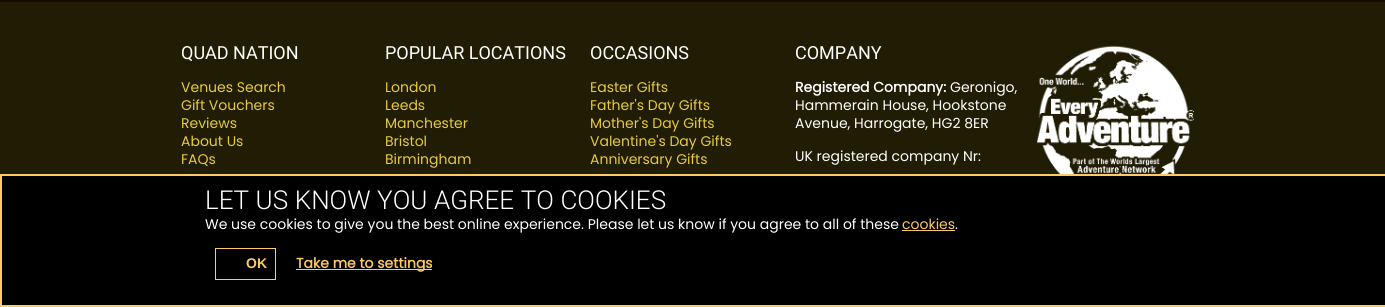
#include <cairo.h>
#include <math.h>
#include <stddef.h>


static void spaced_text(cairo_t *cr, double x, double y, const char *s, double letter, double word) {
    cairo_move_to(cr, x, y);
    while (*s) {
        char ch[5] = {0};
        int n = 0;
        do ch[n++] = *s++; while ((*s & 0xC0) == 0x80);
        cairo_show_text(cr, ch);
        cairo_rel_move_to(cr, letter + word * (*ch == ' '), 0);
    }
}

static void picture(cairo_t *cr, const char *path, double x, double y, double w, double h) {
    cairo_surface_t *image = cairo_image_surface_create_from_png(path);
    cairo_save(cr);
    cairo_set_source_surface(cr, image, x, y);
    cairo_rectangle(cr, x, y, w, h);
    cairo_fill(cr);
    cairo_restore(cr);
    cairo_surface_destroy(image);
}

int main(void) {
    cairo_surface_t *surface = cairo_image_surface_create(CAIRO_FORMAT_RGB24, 1385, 307);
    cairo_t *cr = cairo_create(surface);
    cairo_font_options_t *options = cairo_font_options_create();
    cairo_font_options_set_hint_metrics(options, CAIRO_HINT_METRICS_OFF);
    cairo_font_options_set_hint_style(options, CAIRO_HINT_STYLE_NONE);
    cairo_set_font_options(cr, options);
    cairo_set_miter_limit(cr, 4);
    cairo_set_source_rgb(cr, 0.098, 0.043, 0.008);
    cairo_paint(cr);
    cairo_set_source_rgb(cr, 0.129, 0.11, 0.016);
    cairo_rectangle(cr, 0, 2, 1385, 172);
    cairo_fill(cr);
    cairo_select_font_face(cr, "Roboto", CAIRO_FONT_SLANT_NORMAL, CAIRO_FONT_WEIGHT_NORMAL);
    cairo_set_font_size(cr, 18);
    cairo_set_source_rgb(cr, 1, 1, 1);
    cairo_move_to(cr, 181, 59);
    cairo_show_text(cr, "QUAD NATION");
    cairo_select_font_face(cr, "Poppins", CAIRO_FONT_SLANT_NORMAL, CAIRO_FONT_WEIGHT_NORMAL);
    cairo_set_font_size(cr, 14);
    cairo_set_source_rgb(cr, 0.902, 0.796, 0.243);
    cairo_move_to(cr, 181, 92);
    cairo_show_text(cr, "Venues Search");
    cairo_move_to(cr, 181, 110);
    cairo_show_text(cr, "Gift Vouchers");
    cairo_move_to(cr, 181, 128);
    cairo_show_text(cr, "Reviews");
    cairo_move_to(cr, 181, 146);
    cairo_show_text(cr, "About Us");
    cairo_move_to(cr, 181, 164);
    cairo_show_text(cr, "FAQs");
    cairo_select_font_face(cr, "Roboto", CAIRO_FONT_SLANT_NORMAL, CAIRO_FONT_WEIGHT_NORMAL);
    cairo_set_font_size(cr, 18);
    cairo_set_source_rgb(cr, 1, 1, 1);
    cairo_move_to(cr, 385, 59);
    cairo_show_text(cr, "POPULAR LOCATIONS");
    cairo_select_font_face(cr, "Poppins", CAIRO_FONT_SLANT_NORMAL, CAIRO_FONT_WEIGHT_NORMAL);
    cairo_set_font_size(cr, 14);
    cairo_set_source_rgb(cr, 0.902, 0.796, 0.243);
    cairo_move_to(cr, 385, 92);
    cairo_show_text(cr, "London");
    cairo_move_to(cr, 385, 110);
    cairo_show_text(cr, "Leeds");
    cairo_move_to(cr, 385, 128);
    cairo_show_text(cr, "Manchester");
    cairo_move_to(cr, 385, 146);
    cairo_show_text(cr, "Bristol");
    cairo_move_to(cr, 385, 164);
    cairo_show_text(cr, "Birmingham");
    cairo_select_font_face(cr, "Roboto", CAIRO_FONT_SLANT_NORMAL, CAIRO_FONT_WEIGHT_NORMAL);
    cairo_set_font_size(cr, 18);
    cairo_set_source_rgb(cr, 1, 1, 1);
    cairo_move_to(cr, 590, 59);
    cairo_show_text(cr, "OCCASIONS");
    cairo_select_font_face(cr, "Poppins", CAIRO_FONT_SLANT_NORMAL, CAIRO_FONT_WEIGHT_NORMAL);
    cairo_set_font_size(cr, 14);
    cairo_set_source_rgb(cr, 0.902, 0.796, 0.243);
    cairo_move_to(cr, 590, 92);
    cairo_show_text(cr, "Easter Gifts");
    cairo_move_to(cr, 590, 110);
    cairo_show_text(cr, "Father's Day Gifts");
    cairo_move_to(cr, 590, 128);
    cairo_show_text(cr, "Mother's Day Gifts");
    cairo_move_to(cr, 590, 146);
    cairo_show_text(cr, "Valentine's Day Gifts");
    cairo_move_to(cr, 590, 164);
    cairo_show_text(cr, "Anniversary Gifts");
    cairo_select_font_face(cr, "Roboto", CAIRO_FONT_SLANT_NORMAL, CAIRO_FONT_WEIGHT_NORMAL);
    cairo_set_font_size(cr, 18);
    cairo_set_source_rgb(cr, 1, 1, 1);
    cairo_move_to(cr, 795, 59);
    cairo_show_text(cr, "COMPANY");
    picture(cr, "img1.png", 1036, 45, 158, 129);
    cairo_select_font_face(cr, "Poppins", CAIRO_FONT_SLANT_NORMAL, CAIRO_FONT_WEIGHT_BOLD);
    cairo_set_font_size(cr, 14);
    cairo_move_to(cr, 795, 92);
    cairo_show_text(cr, "Registered Company:");
    cairo_select_font_face(cr, "Poppins", CAIRO_FONT_SLANT_NORMAL, CAIRO_FONT_WEIGHT_NORMAL);
    cairo_move_to(cr, 950, 92);
    cairo_show_text(cr, "Geronigo,");
    cairo_move_to(cr, 795, 110);
    cairo_show_text(cr, "Hammerain House, Hookstone");
    cairo_move_to(cr, 795, 128);
    cairo_show_text(cr, "Avenue, Harrogate, HG2 8ER");
    cairo_move_to(cr, 795, 161);
    cairo_show_text(cr, "UK registered company Nr:");
    cairo_set_source_rgb(cr, 0, 0, 0);
    cairo_rectangle(cr, 1, 175, 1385, 131);
    cairo_fill_preserve(cr);
    cairo_set_source_rgb(cr, 0.996, 0.792, 0.392);
    cairo_stroke(cr);
    cairo_select_font_face(cr, "Roboto Light", CAIRO_FONT_SLANT_NORMAL, CAIRO_FONT_WEIGHT_NORMAL);
    cairo_set_font_size(cr, 26);
    cairo_set_source_rgb(cr, 1, 1, 1);
    spaced_text(cr, 205, 209, "LET US KNOW YOU AGREE TO COOKIES", 0, 0.25);
    cairo_select_font_face(cr, "Poppins", CAIRO_FONT_SLANT_NORMAL, CAIRO_FONT_WEIGHT_NORMAL);
    cairo_set_font_size(cr, 14);
    cairo_move_to(cr, 205, 229);
    cairo_show_text(cr, "We use cookies to give you the best online experience. Please let us know if you agree to all of these");
    cairo_set_source_rgb(cr, 0.996, 0.792, 0.392);
    cairo_move_to(cr, 902, 229);
    cairo_show_text(cr, "cookies");
    cairo_rectangle(cr, 902, 230, 53, 1);
    cairo_fill(cr);
    cairo_set_source_rgb(cr, 1, 1, 1);
    cairo_move_to(cr, 955, 229);
    cairo_show_text(cr, ".");
    cairo_rectangle(cr, 215.5, 248.5, 60, 31);
    cairo_set_source_rgb(cr, 0.996, 0.792, 0.392);
    cairo_set_line_width(cr, 1);
    cairo_stroke(cr);
    cairo_select_font_face(cr, "Liberation Sans", CAIRO_FONT_SLANT_NORMAL, CAIRO_FONT_WEIGHT_BOLD);
    cairo_move_to(cr, 246, 268);
    cairo_show_text(cr, "OK");
    cairo_rectangle(cr, 296, 269, 136, 1);
    cairo_fill(cr);
    cairo_select_font_face(cr, "Poppins", CAIRO_FONT_SLANT_NORMAL, CAIRO_FONT_WEIGHT_BOLD);
    cairo_move_to(cr, 296, 268);
    cairo_show_text(cr, "Take me to settings");
    cairo_surface_write_to_png(surface, "page.png");
    cairo_font_options_destroy(options);
    cairo_destroy(cr);
    cairo_surface_destroy(surface);
    return 0;
}
